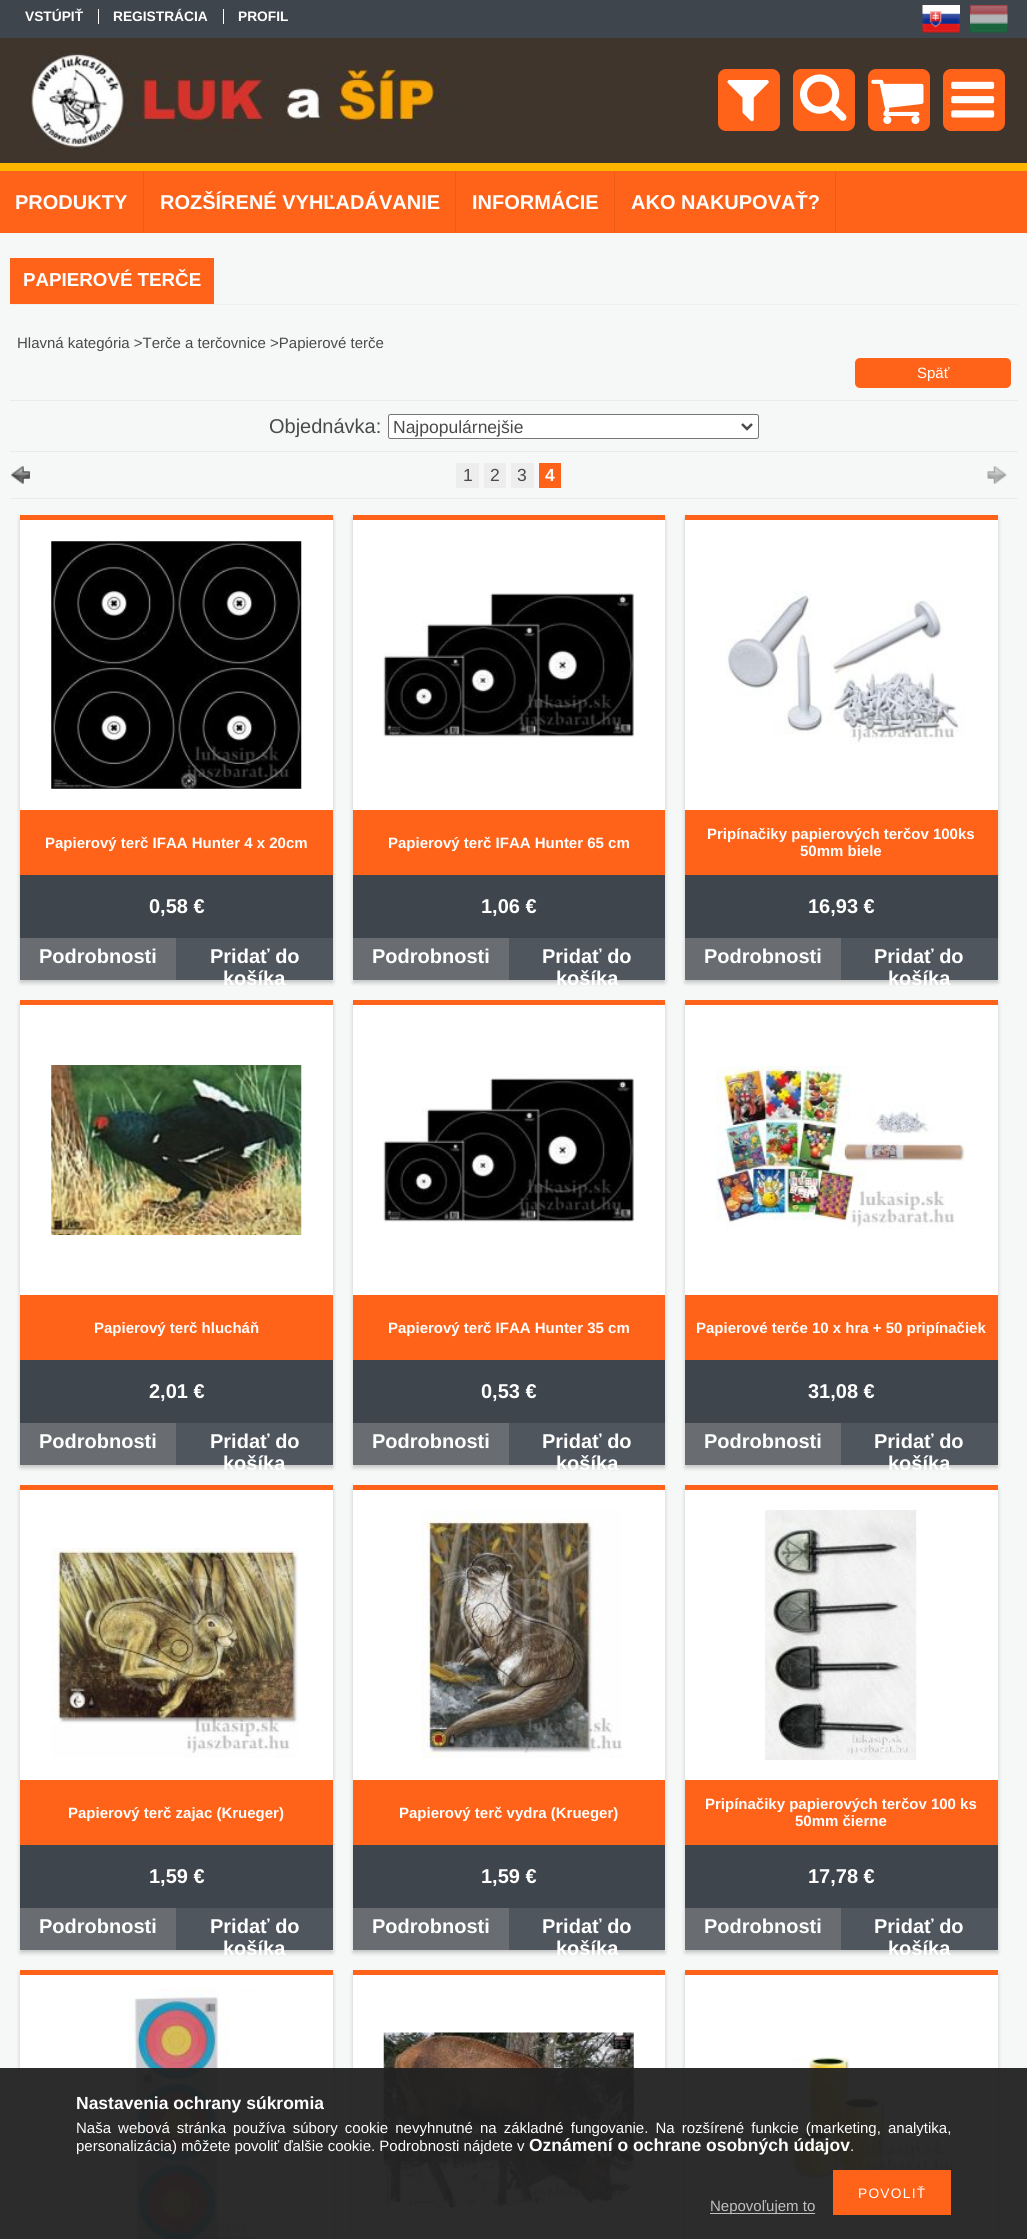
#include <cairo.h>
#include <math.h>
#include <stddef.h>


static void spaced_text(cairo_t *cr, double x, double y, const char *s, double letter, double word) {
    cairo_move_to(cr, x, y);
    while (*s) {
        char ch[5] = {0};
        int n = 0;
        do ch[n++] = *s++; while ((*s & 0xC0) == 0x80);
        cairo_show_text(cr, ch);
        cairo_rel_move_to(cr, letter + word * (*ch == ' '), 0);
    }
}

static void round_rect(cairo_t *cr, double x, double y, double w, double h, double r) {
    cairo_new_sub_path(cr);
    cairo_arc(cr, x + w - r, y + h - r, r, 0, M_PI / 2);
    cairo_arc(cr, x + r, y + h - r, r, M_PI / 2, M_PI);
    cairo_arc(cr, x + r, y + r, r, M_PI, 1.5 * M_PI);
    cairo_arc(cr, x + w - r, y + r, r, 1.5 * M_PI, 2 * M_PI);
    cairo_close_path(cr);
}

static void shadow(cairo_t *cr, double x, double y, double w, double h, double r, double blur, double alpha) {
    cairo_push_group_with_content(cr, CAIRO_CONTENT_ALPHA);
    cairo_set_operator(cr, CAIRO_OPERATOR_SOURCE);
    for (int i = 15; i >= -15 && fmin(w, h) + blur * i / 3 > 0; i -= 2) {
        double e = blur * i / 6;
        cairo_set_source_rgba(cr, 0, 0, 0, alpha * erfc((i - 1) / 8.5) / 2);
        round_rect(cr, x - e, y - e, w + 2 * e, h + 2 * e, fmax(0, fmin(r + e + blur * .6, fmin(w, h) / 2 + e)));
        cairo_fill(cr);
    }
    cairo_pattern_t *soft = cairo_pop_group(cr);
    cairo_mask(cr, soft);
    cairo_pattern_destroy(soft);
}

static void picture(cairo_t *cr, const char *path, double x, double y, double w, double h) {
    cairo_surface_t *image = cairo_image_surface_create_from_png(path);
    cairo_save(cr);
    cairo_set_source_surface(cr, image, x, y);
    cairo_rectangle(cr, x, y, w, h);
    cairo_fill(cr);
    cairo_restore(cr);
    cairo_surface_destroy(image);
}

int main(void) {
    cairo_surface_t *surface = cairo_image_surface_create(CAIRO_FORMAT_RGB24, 1027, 2239);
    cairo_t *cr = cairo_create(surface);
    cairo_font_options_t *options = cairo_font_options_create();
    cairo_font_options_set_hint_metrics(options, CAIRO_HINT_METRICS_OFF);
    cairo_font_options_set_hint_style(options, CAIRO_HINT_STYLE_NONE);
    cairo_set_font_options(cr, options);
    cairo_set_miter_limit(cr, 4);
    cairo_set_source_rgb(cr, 0.961, 0.965, 0.965);
    cairo_paint(cr);
    cairo_set_source_rgb(cr, 0.243, 0.271, 0.298);
    cairo_rectangle(cr, 0, 0, 1027, 38);
    cairo_fill(cr);
    cairo_select_font_face(cr, "Liberation Sans", CAIRO_FONT_SLANT_NORMAL, CAIRO_FONT_WEIGHT_BOLD);
    cairo_set_font_size(cr, 13.75);
    cairo_set_source_rgb(cr, 1, 1, 1);
    cairo_move_to(cr, 25, 21);
    cairo_show_text(cr, "VSTÚPIŤ");
    cairo_rectangle(cr, 98, 9, 1, 15);
    cairo_fill(cr);
    cairo_move_to(cr, 113, 21);
    cairo_show_text(cr, "REGISTRÁCIA");
    cairo_rectangle(cr, 223, 9, 1, 15);
    cairo_fill(cr);
    cairo_move_to(cr, 238, 21);
    cairo_show_text(cr, "PROFIL");
    picture(cr, "img1.png", 922, 5, 38, 28);
    picture(cr, "img2.png", 970, 5, 38, 28);
    cairo_set_source_rgb(cr, 0.247, 0.208, 0.173);
    cairo_rectangle(cr, 0, 38, 1027, 125);
    cairo_fill(cr);
    cairo_set_source_rgb(cr, 1, 0.706, 0);
    cairo_rectangle(cr, 0, 163, 1027, 8);
    cairo_fill(cr);
    picture(cr, "img3.png", 30, 50, 420, 100);
    cairo_set_source_rgb(cr, 0.996, 0.388, 0.098);
    round_rect(cr, 718, 69, 62, 62, 8);
    cairo_fill(cr);
    picture(cr, "img4.png", 727, 80, 42, 42);
    round_rect(cr, 793, 69, 62, 62, 8);
    cairo_fill(cr);
    picture(cr, "img5.png", 800, 74, 47, 47);
    round_rect(cr, 868, 69, 62, 62, 8);
    cairo_fill(cr);
    picture(cr, "img6.png", 871, 79, 53, 45);
    round_rect(cr, 943, 69, 62, 62, 8);
    cairo_fill(cr);
    picture(cr, "img7.png", 951, 81, 44, 37);
    cairo_rectangle(cr, 0, 171, 1027, 62);
    cairo_fill(cr);
    cairo_save(cr);
    cairo_rectangle(cr, 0, 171, 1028, 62);
    cairo_clip(cr);
    cairo_set_fill_rule(cr, CAIRO_FILL_RULE_EVEN_ODD);
    cairo_new_path(cr);
    cairo_move_to(cr, 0, 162);
    cairo_line_to(cr, 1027, 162);
    cairo_line_to(cr, 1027, 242);
    cairo_line_to(cr, 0, 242);
    cairo_close_path(cr);
    cairo_move_to(cr, 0, 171);
    cairo_line_to(cr, 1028, 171);
    cairo_line_to(cr, 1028, 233);
    cairo_line_to(cr, 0, 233);
    cairo_close_path(cr);
    cairo_clip(cr);
    cairo_set_source_rgb(cr, 0, 0, 0);
    shadow(cr, 5, 171, 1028, 62, 0, 2.5, 0.2);
    cairo_restore(cr);
    cairo_set_source_rgba(cr, 0, 0, 0, 0.07);
    cairo_rectangle(cr, 143, 171, 1, 62);
    cairo_fill(cr);
    cairo_set_font_size(cr, 20);
    cairo_set_source_rgb(cr, 1, 1, 1);
    cairo_move_to(cr, 15, 209);
    cairo_show_text(cr, "PRODUKTY");
    cairo_set_source_rgba(cr, 0, 0, 0, 0.07);
    cairo_rectangle(cr, 455, 171, 1, 62);
    cairo_fill(cr);
    cairo_set_source_rgb(cr, 1, 1, 1);
    cairo_move_to(cr, 160, 209);
    cairo_show_text(cr, "ROZŠÍRENÉ VYHĽADÁVANIE");
    cairo_set_source_rgba(cr, 0, 0, 0, 0.07);
    cairo_rectangle(cr, 614, 171, 1, 62);
    cairo_fill(cr);
    cairo_set_source_rgb(cr, 1, 1, 1);
    cairo_move_to(cr, 472, 209);
    cairo_show_text(cr, "INFORMÁCIE");
    cairo_set_source_rgba(cr, 0, 0, 0, 0.07);
    cairo_rectangle(cr, 835, 171, 1, 62);
    cairo_fill(cr);
    cairo_set_source_rgb(cr, 1, 1, 1);
    cairo_move_to(cr, 631, 209);
    cairo_show_text(cr, "AKO NAKUPOVAŤ?");
    cairo_set_source_rgb(cr, 0.937, 0.937, 0.937);
    cairo_rectangle(cr, 10, 304, 1008, 1);
    cairo_fill(cr);
    cairo_set_source_rgb(cr, 0.996, 0.388, 0.098);
    cairo_rectangle(cr, 10, 258, 204, 46);
    cairo_fill(cr);
    cairo_set_font_size(cr, 18.75);
    cairo_set_source_rgb(cr, 1, 1, 1);
    cairo_move_to(cr, 23, 286);
    cairo_show_text(cr, "PAPIEROVÉ TERČE");
    cairo_select_font_face(cr, "Liberation Sans", CAIRO_FONT_SLANT_NORMAL, CAIRO_FONT_WEIGHT_NORMAL);
    cairo_set_font_size(cr, 15);
    cairo_set_source_rgb(cr, 0.29, 0.29, 0.29);
    cairo_move_to(cr, 17, 348);
    cairo_show_text(cr, "Hlavná kategória >Terče a terčovnice >Papierové terče");
    cairo_set_source_rgb(cr, 0.996, 0.388, 0.098);
    round_rect(cr, 855, 358, 156, 30, 5);
    cairo_fill(cr);
    cairo_set_source_rgb(cr, 1, 1, 1);
    cairo_move_to(cr, 917, 378);
    cairo_show_text(cr, "Späť");
    cairo_set_source_rgb(cr, 0.925, 0.918, 0.918);
    cairo_rectangle(cr, 10, 400, 1008, 1);
    cairo_fill(cr);
    cairo_set_font_size(cr, 20);
    cairo_set_source_rgb(cr, 0.29, 0.29, 0.29);
    cairo_move_to(cr, 269, 433);
    cairo_show_text(cr, "Objednávka:");
    cairo_set_source_rgb(cr, 1, 1, 1);
    round_rect(cr, 388.5, 414.5, 370, 24, 2);
    cairo_fill_preserve(cr);
    cairo_set_source_rgb(cr, 0.463, 0.463, 0.463);
    cairo_set_line_width(cr, 1);
    cairo_stroke(cr);
    cairo_new_path(cr);
    cairo_move_to(cr, 742, 424);
    cairo_line_to(cr, 747, 429);
    cairo_line_to(cr, 752, 424);
    cairo_set_source_rgb(cr, 0.29, 0.29, 0.29);
    cairo_set_line_width(cr, 2.5);
    cairo_stroke(cr);
    cairo_set_font_size(cr, 17.5);
    cairo_move_to(cr, 393, 433);
    cairo_show_text(cr, "Najpopulárnejšie");
    cairo_set_source_rgb(cr, 0.925, 0.918, 0.918);
    cairo_rectangle(cr, 10, 451, 1008, 1);
    cairo_fill(cr);
    picture(cr, "img8.png", 11, 466, 19, 18);
    cairo_set_source_rgb(cr, 0.929, 0.929, 0.929);
    cairo_rectangle(cr, 456, 463, 23, 25);
    cairo_fill(cr);
    cairo_set_source_rgb(cr, 0.29, 0.29, 0.29);
    cairo_move_to(cr, 463, 481);
    cairo_show_text(cr, "1");
    cairo_set_source_rgb(cr, 0.929, 0.929, 0.929);
    cairo_rectangle(cr, 484, 463, 22, 25);
    cairo_fill(cr);
    cairo_set_source_rgb(cr, 0.29, 0.29, 0.29);
    cairo_move_to(cr, 490, 481);
    cairo_show_text(cr, "2");
    cairo_set_source_rgb(cr, 0.929, 0.929, 0.929);
    cairo_rectangle(cr, 511, 463, 23, 25);
    cairo_fill(cr);
    cairo_set_source_rgb(cr, 0.29, 0.29, 0.29);
    cairo_move_to(cr, 517, 481);
    cairo_show_text(cr, "3");
    cairo_set_source_rgb(cr, 0.996, 0.388, 0.098);
    cairo_rectangle(cr, 539, 463, 22, 25);
    cairo_fill(cr);
    cairo_select_font_face(cr, "Liberation Sans", CAIRO_FONT_SLANT_NORMAL, CAIRO_FONT_WEIGHT_BOLD);
    cairo_set_source_rgb(cr, 1, 1, 1);
    cairo_move_to(cr, 545, 481);
    cairo_show_text(cr, "4");
    picture(cr, "img9.png", 987, 466, 20, 18);
    cairo_set_source_rgb(cr, 0.925, 0.918, 0.918);
    cairo_rectangle(cr, 10, 498, 1008, 1);
    cairo_fill(cr);
    cairo_set_source_rgb(cr, 0, 0, 0);
    shadow(cr, 20, 518, 313, 465, 0, 2, 0.2);
    cairo_set_source_rgb(cr, 0.996, 0.388, 0.098);
    cairo_rectangle(cr, 20, 515, 313, 5);
    cairo_fill(cr);
    cairo_set_source_rgb(cr, 1, 1, 1);
    cairo_rectangle(cr, 20, 520, 313, 290);
    cairo_fill(cr);
    picture(cr, "img10.png", 51, 541, 251, 248);
    cairo_set_source_rgb(cr, 0.996, 0.388, 0.098);
    cairo_rectangle(cr, 20, 810, 313, 65);
    cairo_fill(cr);
    cairo_set_font_size(cr, 15);
    cairo_set_source_rgb(cr, 1, 1, 1);
    cairo_move_to(cr, 45, 848);
    cairo_show_text(cr, "Papierový terč IFAA Hunter 4 x 20cm");
    cairo_set_source_rgb(cr, 0.243, 0.271, 0.298);
    cairo_rectangle(cr, 20, 875, 313, 63);
    cairo_fill(cr);
    cairo_set_font_size(cr, 20);
    cairo_set_source_rgb(cr, 1, 1, 1);
    cairo_move_to(cr, 149, 913);
    cairo_show_text(cr, "0,58 €");
    cairo_set_source_rgb(cr, 0.412, 0.427, 0.443);
    cairo_rectangle(cr, 20, 938, 156, 42);
    cairo_fill(cr);
    cairo_set_source_rgb(cr, 1, 1, 1);
    cairo_move_to(cr, 39, 963);
    cairo_show_text(cr, "Podrobnosti");
    cairo_set_source_rgb(cr, 0.31, 0.337, 0.369);
    cairo_rectangle(cr, 176, 938, 157, 42);
    cairo_fill(cr);
    cairo_set_source_rgb(cr, 1, 1, 1);
    cairo_move_to(cr, 210, 963);
    cairo_show_text(cr, "Pridať do");
    cairo_move_to(cr, 223, 985);
    cairo_show_text(cr, "košíka");
    cairo_set_source_rgb(cr, 0, 0, 0);
    shadow(cr, 353, 518, 312, 465, 0, 2, 0.2);
    cairo_set_source_rgb(cr, 0.996, 0.388, 0.098);
    cairo_rectangle(cr, 353, 515, 312, 5);
    cairo_fill(cr);
    cairo_set_source_rgb(cr, 1, 1, 1);
    cairo_rectangle(cr, 353, 520, 312, 290);
    cairo_fill(cr);
    picture(cr, "img11.png", 383, 593, 251, 144);
    cairo_set_source_rgb(cr, 0.996, 0.388, 0.098);
    cairo_rectangle(cr, 353, 810, 312, 65);
    cairo_fill(cr);
    cairo_set_font_size(cr, 15);
    cairo_set_source_rgb(cr, 1, 1, 1);
    cairo_move_to(cr, 388, 848);
    cairo_show_text(cr, "Papierový terč IFAA Hunter 65 cm");
    cairo_set_source_rgb(cr, 0.243, 0.271, 0.298);
    cairo_rectangle(cr, 353, 875, 312, 63);
    cairo_fill(cr);
    cairo_set_font_size(cr, 20);
    cairo_set_source_rgb(cr, 1, 1, 1);
    cairo_move_to(cr, 481, 913);
    cairo_show_text(cr, "1,06 €");
    cairo_set_source_rgb(cr, 0.412, 0.427, 0.443);
    cairo_rectangle(cr, 353, 938, 156, 42);
    cairo_fill(cr);
    cairo_set_source_rgb(cr, 1, 1, 1);
    cairo_move_to(cr, 372, 963);
    cairo_show_text(cr, "Podrobnosti");
    cairo_set_source_rgb(cr, 0.31, 0.337, 0.369);
    cairo_rectangle(cr, 509, 938, 156, 42);
    cairo_fill(cr);
    cairo_set_source_rgb(cr, 1, 1, 1);
    cairo_move_to(cr, 542, 963);
    cairo_show_text(cr, "Pridať do");
    cairo_move_to(cr, 556, 985);
    cairo_show_text(cr, "košíka");
    cairo_set_source_rgb(cr, 0, 0, 0);
    shadow(cr, 685, 518, 313, 465, 0, 2, 0.2);
    cairo_set_source_rgb(cr, 0.996, 0.388, 0.098);
    cairo_rectangle(cr, 685, 515, 313, 5);
    cairo_fill(cr);
    cairo_set_source_rgb(cr, 1, 1, 1);
    cairo_rectangle(cr, 685, 520, 313, 290);
    cairo_fill(cr);
    picture(cr, "img12.png", 725, 591, 239, 153);
    cairo_set_source_rgb(cr, 0.996, 0.388, 0.098);
    cairo_rectangle(cr, 685, 810, 313, 65);
    cairo_fill(cr);
    cairo_set_font_size(cr, 15);
    cairo_set_source_rgb(cr, 1, 1, 1);
    cairo_move_to(cr, 707, 839);
    cairo_show_text(cr, "Pripínačiky papierových terčov 100ks");
    cairo_move_to(cr, 800, 856);
    cairo_show_text(cr, "50mm biele");
    cairo_set_source_rgb(cr, 0.243, 0.271, 0.298);
    cairo_rectangle(cr, 685, 875, 313, 63);
    cairo_fill(cr);
    cairo_set_font_size(cr, 20);
    cairo_set_source_rgb(cr, 1, 1, 1);
    cairo_move_to(cr, 808, 913);
    cairo_show_text(cr, "16,93 €");
    cairo_set_source_rgb(cr, 0.412, 0.427, 0.443);
    cairo_rectangle(cr, 685, 938, 156, 42);
    cairo_fill(cr);
    cairo_set_source_rgb(cr, 1, 1, 1);
    cairo_move_to(cr, 704, 963);
    cairo_show_text(cr, "Podrobnosti");
    cairo_set_source_rgb(cr, 0.31, 0.337, 0.369);
    cairo_rectangle(cr, 841, 938, 157, 42);
    cairo_fill(cr);
    cairo_set_source_rgb(cr, 1, 1, 1);
    cairo_move_to(cr, 874, 963);
    cairo_show_text(cr, "Pridať do");
    cairo_move_to(cr, 888, 985);
    cairo_show_text(cr, "košíka");
    cairo_set_source_rgb(cr, 0, 0, 0);
    shadow(cr, 20, 1003, 313, 465, 0, 2, 0.2);
    cairo_set_source_rgb(cr, 0.996, 0.388, 0.098);
    cairo_rectangle(cr, 20, 1000, 313, 5);
    cairo_fill(cr);
    cairo_set_source_rgb(cr, 1, 1, 1);
    cairo_rectangle(cr, 20, 1005, 313, 290);
    cairo_fill(cr);
    picture(cr, "img13.png", 51, 1065, 251, 170);
    cairo_set_source_rgb(cr, 0.996, 0.388, 0.098);
    cairo_rectangle(cr, 20, 1295, 313, 65);
    cairo_fill(cr);
    cairo_set_font_size(cr, 15);
    cairo_set_source_rgb(cr, 1, 1, 1);
    cairo_move_to(cr, 94, 1333);
    cairo_show_text(cr, "Papierový terč hlucháň");
    cairo_set_source_rgb(cr, 0.243, 0.271, 0.298);
    cairo_rectangle(cr, 20, 1360, 313, 63);
    cairo_fill(cr);
    cairo_set_font_size(cr, 20);
    cairo_set_source_rgb(cr, 1, 1, 1);
    cairo_move_to(cr, 149, 1398);
    cairo_show_text(cr, "2,01 €");
    cairo_set_source_rgb(cr, 0.412, 0.427, 0.443);
    cairo_rectangle(cr, 20, 1423, 156, 42);
    cairo_fill(cr);
    cairo_set_source_rgb(cr, 1, 1, 1);
    cairo_move_to(cr, 39, 1448);
    cairo_show_text(cr, "Podrobnosti");
    cairo_set_source_rgb(cr, 0.31, 0.337, 0.369);
    cairo_rectangle(cr, 176, 1423, 157, 42);
    cairo_fill(cr);
    cairo_set_source_rgb(cr, 1, 1, 1);
    cairo_move_to(cr, 210, 1448);
    cairo_show_text(cr, "Pridať do");
    cairo_move_to(cr, 223, 1470);
    cairo_show_text(cr, "košíka");
    cairo_set_source_rgb(cr, 0, 0, 0);
    shadow(cr, 353, 1003, 312, 465, 0, 2, 0.2);
    cairo_set_source_rgb(cr, 0.996, 0.388, 0.098);
    cairo_rectangle(cr, 353, 1000, 312, 5);
    cairo_fill(cr);
    cairo_set_source_rgb(cr, 1, 1, 1);
    cairo_rectangle(cr, 353, 1005, 312, 290);
    cairo_fill(cr);
    picture(cr, "img14.png", 383, 1078, 251, 144);
    cairo_set_source_rgb(cr, 0.996, 0.388, 0.098);
    cairo_rectangle(cr, 353, 1295, 312, 65);
    cairo_fill(cr);
    cairo_set_font_size(cr, 15);
    cairo_set_source_rgb(cr, 1, 1, 1);
    cairo_move_to(cr, 388, 1333);
    cairo_show_text(cr, "Papierový terč IFAA Hunter 35 cm");
    cairo_set_source_rgb(cr, 0.243, 0.271, 0.298);
    cairo_rectangle(cr, 353, 1360, 312, 63);
    cairo_fill(cr);
    cairo_set_font_size(cr, 20);
    cairo_set_source_rgb(cr, 1, 1, 1);
    cairo_move_to(cr, 481, 1398);
    cairo_show_text(cr, "0,53 €");
    cairo_set_source_rgb(cr, 0.412, 0.427, 0.443);
    cairo_rectangle(cr, 353, 1423, 156, 42);
    cairo_fill(cr);
    cairo_set_source_rgb(cr, 1, 1, 1);
    cairo_move_to(cr, 372, 1448);
    cairo_show_text(cr, "Podrobnosti");
    cairo_set_source_rgb(cr, 0.31, 0.337, 0.369);
    cairo_rectangle(cr, 509, 1423, 156, 42);
    cairo_fill(cr);
    cairo_set_source_rgb(cr, 1, 1, 1);
    cairo_move_to(cr, 542, 1448);
    cairo_show_text(cr, "Pridať do");
    cairo_move_to(cr, 556, 1470);
    cairo_show_text(cr, "košíka");
    cairo_set_source_rgb(cr, 0, 0, 0);
    shadow(cr, 685, 1003, 313, 465, 0, 2, 0.2);
    cairo_set_source_rgb(cr, 0.996, 0.388, 0.098);
    cairo_rectangle(cr, 685, 1000, 313, 5);
    cairo_fill(cr);
    cairo_set_source_rgb(cr, 1, 1, 1);
    cairo_rectangle(cr, 685, 1005, 313, 290);
    cairo_fill(cr);
    picture(cr, "img15.png", 716, 1066, 249, 163);
    cairo_set_source_rgb(cr, 0.996, 0.388, 0.098);
    cairo_rectangle(cr, 685, 1295, 313, 65);
    cairo_fill(cr);
    cairo_set_font_size(cr, 15);
    cairo_set_source_rgb(cr, 1, 1, 1);
    cairo_move_to(cr, 696, 1333);
    cairo_show_text(cr, "Papierové terče 10 x hra + 50 pripínačiek");
    cairo_set_source_rgb(cr, 0.243, 0.271, 0.298);
    cairo_rectangle(cr, 685, 1360, 313, 63);
    cairo_fill(cr);
    cairo_set_font_size(cr, 20);
    cairo_set_source_rgb(cr, 1, 1, 1);
    cairo_move_to(cr, 808, 1398);
    cairo_show_text(cr, "31,08 €");
    cairo_set_source_rgb(cr, 0.412, 0.427, 0.443);
    cairo_rectangle(cr, 685, 1423, 156, 42);
    cairo_fill(cr);
    cairo_set_source_rgb(cr, 1, 1, 1);
    cairo_move_to(cr, 704, 1448);
    cairo_show_text(cr, "Podrobnosti");
    cairo_set_source_rgb(cr, 0.31, 0.337, 0.369);
    cairo_rectangle(cr, 841, 1423, 157, 42);
    cairo_fill(cr);
    cairo_set_source_rgb(cr, 1, 1, 1);
    cairo_move_to(cr, 874, 1448);
    cairo_show_text(cr, "Pridať do");
    cairo_move_to(cr, 888, 1470);
    cairo_show_text(cr, "košíka");
    cairo_set_source_rgb(cr, 0, 0, 0);
    shadow(cr, 20, 1488, 313, 465, 0, 2, 0.2);
    cairo_set_source_rgb(cr, 0.996, 0.388, 0.098);
    cairo_rectangle(cr, 20, 1485, 313, 5);
    cairo_fill(cr);
    cairo_set_source_rgb(cr, 1, 1, 1);
    cairo_rectangle(cr, 20, 1490, 313, 290);
    cairo_fill(cr);
    picture(cr, "img16.png", 51, 1548, 248, 210);
    cairo_set_source_rgb(cr, 0.996, 0.388, 0.098);
    cairo_rectangle(cr, 20, 1780, 313, 65);
    cairo_fill(cr);
    cairo_set_font_size(cr, 15);
    cairo_set_source_rgb(cr, 1, 1, 1);
    cairo_move_to(cr, 68, 1818);
    cairo_show_text(cr, "Papierový terč zajac (Krueger)");
    cairo_set_source_rgb(cr, 0.243, 0.271, 0.298);
    cairo_rectangle(cr, 20, 1845, 313, 63);
    cairo_fill(cr);
    cairo_set_font_size(cr, 20);
    cairo_set_source_rgb(cr, 1, 1, 1);
    cairo_move_to(cr, 149, 1883);
    cairo_show_text(cr, "1,59 €");
    cairo_set_source_rgb(cr, 0.412, 0.427, 0.443);
    cairo_rectangle(cr, 20, 1908, 156, 42);
    cairo_fill(cr);
    cairo_set_source_rgb(cr, 1, 1, 1);
    cairo_move_to(cr, 39, 1933);
    cairo_show_text(cr, "Podrobnosti");
    cairo_set_source_rgb(cr, 0.31, 0.337, 0.369);
    cairo_rectangle(cr, 176, 1908, 157, 42);
    cairo_fill(cr);
    cairo_set_source_rgb(cr, 1, 1, 1);
    cairo_move_to(cr, 210, 1933);
    cairo_show_text(cr, "Pridať do");
    cairo_move_to(cr, 223, 1955);
    cairo_show_text(cr, "košíka");
    cairo_set_source_rgb(cr, 0, 0, 0);
    shadow(cr, 353, 1488, 312, 465, 0, 2, 0.2);
    cairo_set_source_rgb(cr, 0.996, 0.388, 0.098);
    cairo_rectangle(cr, 353, 1485, 312, 5);
    cairo_fill(cr);
    cairo_set_source_rgb(cr, 1, 1, 1);
    cairo_rectangle(cr, 353, 1490, 312, 290);
    cairo_fill(cr);
    picture(cr, "img17.png", 421, 1510, 201, 248);
    cairo_set_source_rgb(cr, 0.996, 0.388, 0.098);
    cairo_rectangle(cr, 353, 1780, 312, 65);
    cairo_fill(cr);
    cairo_set_font_size(cr, 15);
    cairo_set_source_rgb(cr, 1, 1, 1);
    cairo_move_to(cr, 399, 1818);
    cairo_show_text(cr, "Papierový terč vydra (Krueger)");
    cairo_set_source_rgb(cr, 0.243, 0.271, 0.298);
    cairo_rectangle(cr, 353, 1845, 312, 63);
    cairo_fill(cr);
    cairo_set_font_size(cr, 20);
    cairo_set_source_rgb(cr, 1, 1, 1);
    cairo_move_to(cr, 481, 1883);
    cairo_show_text(cr, "1,59 €");
    cairo_set_source_rgb(cr, 0.412, 0.427, 0.443);
    cairo_rectangle(cr, 353, 1908, 156, 42);
    cairo_fill(cr);
    cairo_set_source_rgb(cr, 1, 1, 1);
    cairo_move_to(cr, 372, 1933);
    cairo_show_text(cr, "Podrobnosti");
    cairo_set_source_rgb(cr, 0.31, 0.337, 0.369);
    cairo_rectangle(cr, 509, 1908, 156, 42);
    cairo_fill(cr);
    cairo_set_source_rgb(cr, 1, 1, 1);
    cairo_move_to(cr, 542, 1933);
    cairo_show_text(cr, "Pridať do");
    cairo_move_to(cr, 556, 1955);
    cairo_show_text(cr, "košíka");
    cairo_set_source_rgb(cr, 0, 0, 0);
    shadow(cr, 685, 1488, 313, 465, 0, 2, 0.2);
    cairo_set_source_rgb(cr, 0.996, 0.388, 0.098);
    cairo_rectangle(cr, 685, 1485, 313, 5);
    cairo_fill(cr);
    cairo_set_source_rgb(cr, 1, 1, 1);
    cairo_rectangle(cr, 685, 1490, 313, 290);
    cairo_fill(cr);
    picture(cr, "img18.png", 765, 1510, 152, 250);
    cairo_set_source_rgb(cr, 0.996, 0.388, 0.098);
    cairo_rectangle(cr, 685, 1780, 313, 65);
    cairo_fill(cr);
    cairo_set_font_size(cr, 15);
    cairo_set_source_rgb(cr, 1, 1, 1);
    cairo_move_to(cr, 705, 1809);
    cairo_show_text(cr, "Pripínačiky papierových terčov 100 ks");
    cairo_move_to(cr, 795, 1826);
    cairo_show_text(cr, "50mm čierne");
    cairo_set_source_rgb(cr, 0.243, 0.271, 0.298);
    cairo_rectangle(cr, 685, 1845, 313, 63);
    cairo_fill(cr);
    cairo_set_font_size(cr, 20);
    cairo_set_source_rgb(cr, 1, 1, 1);
    cairo_move_to(cr, 808, 1883);
    cairo_show_text(cr, "17,78 €");
    cairo_set_source_rgb(cr, 0.412, 0.427, 0.443);
    cairo_rectangle(cr, 685, 1908, 156, 42);
    cairo_fill(cr);
    cairo_set_source_rgb(cr, 1, 1, 1);
    cairo_move_to(cr, 704, 1933);
    cairo_show_text(cr, "Podrobnosti");
    cairo_set_source_rgb(cr, 0.31, 0.337, 0.369);
    cairo_rectangle(cr, 841, 1908, 157, 42);
    cairo_fill(cr);
    cairo_set_source_rgb(cr, 1, 1, 1);
    cairo_move_to(cr, 874, 1933);
    cairo_show_text(cr, "Pridať do");
    cairo_move_to(cr, 888, 1955);
    cairo_show_text(cr, "košíka");
    cairo_set_source_rgb(cr, 0, 0, 0);
    shadow(cr, 20, 1973, 313, 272, 0, 2, 0.2);
    cairo_set_source_rgb(cr, 0.996, 0.388, 0.098);
    cairo_rectangle(cr, 20, 1970, 313, 5);
    cairo_fill(cr);
    cairo_set_source_rgb(cr, 1, 1, 1);
    cairo_rectangle(cr, 20, 1975, 313, 264);
    cairo_fill(cr);
    picture(cr, "img19.png", 128, 1989, 129, 250);
    cairo_set_source_rgb(cr, 0, 0, 0);
    shadow(cr, 353, 1973, 312, 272, 0, 2, 0.2);
    cairo_set_source_rgb(cr, 0.996, 0.388, 0.098);
    cairo_rectangle(cr, 353, 1970, 312, 5);
    cairo_fill(cr);
    cairo_set_source_rgb(cr, 1, 1, 1);
    cairo_rectangle(cr, 353, 1975, 312, 264);
    cairo_fill(cr);
    picture(cr, "img20.png", 383, 2032, 251, 176);
    cairo_set_source_rgb(cr, 0, 0, 0);
    shadow(cr, 685, 1973, 313, 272, 0, 2, 0.2);
    cairo_set_source_rgb(cr, 0.996, 0.388, 0.098);
    cairo_rectangle(cr, 685, 1970, 313, 5);
    cairo_fill(cr);
    cairo_set_source_rgb(cr, 1, 1, 1);
    cairo_rectangle(cr, 685, 1975, 313, 264);
    cairo_fill(cr);
    picture(cr, "img21.png", 791, 2057, 164, 125);
    cairo_set_source_rgba(cr, 0.133, 0.133, 0.133, 0.95);
    cairo_rectangle(cr, 0, 2068, 1027, 171);
    cairo_fill(cr);
    cairo_set_font_size(cr, 17.5);
    cairo_set_source_rgb(cr, 1, 1, 1);
    cairo_move_to(cr, 76, 2109);
    cairo_show_text(cr, "Nastavenia ochrany súkromia");
    cairo_select_font_face(cr, "Liberation Sans", CAIRO_FONT_SLANT_NORMAL, CAIRO_FONT_WEIGHT_NORMAL);
    cairo_set_font_size(cr, 15);
    spaced_text(cr, 76, 2133, "Naša webová stránka používa súbory cookie nevyhnutné na základné fungovanie. Na rozšírené funkcie (marketing, analytika,", 0, 2.9);
    cairo_move_to(cr, 76, 2151);
    cairo_show_text(cr, "personalizácia) môžete povoliť ďalšie cookie. Podrobnosti nájdete v");
    cairo_select_font_face(cr, "Liberation Sans", CAIRO_FONT_SLANT_NORMAL, CAIRO_FONT_WEIGHT_BOLD);
    cairo_set_font_size(cr, 17.5);
    cairo_move_to(cr, 529, 2151);
    cairo_show_text(cr, "Oznámení o ochrane osobných údajov");
    cairo_select_font_face(cr, "Liberation Sans", CAIRO_FONT_SLANT_NORMAL, CAIRO_FONT_WEIGHT_NORMAL);
    cairo_set_font_size(cr, 15);
    cairo_move_to(cr, 850, 2151);
    cairo_show_text(cr, ".");
    cairo_set_source_rgb(cr, 0.996, 0.388, 0.098);
    cairo_rectangle(cr, 833, 2170, 118, 45);
    cairo_fill(cr);
    cairo_set_font_size(cr, 13.75);
    cairo_set_source_rgb(cr, 1, 1, 1);
    spaced_text(cr, 858, 2198, "POVOLIŤ", 1.25, 0);
    cairo_set_source_rgb(cr, 0.753, 0.753, 0.753);
    cairo_rectangle(cr, 710, 2213, 105, 1);
    cairo_fill(cr);
    cairo_set_font_size(cr, 15);
    cairo_move_to(cr, 710, 2211);
    cairo_show_text(cr, "Nepovoľujem to");
    cairo_surface_write_to_png(surface, "page.png");
    cairo_font_options_destroy(options);
    cairo_destroy(cr);
    cairo_surface_destroy(surface);
    return 0;
}
